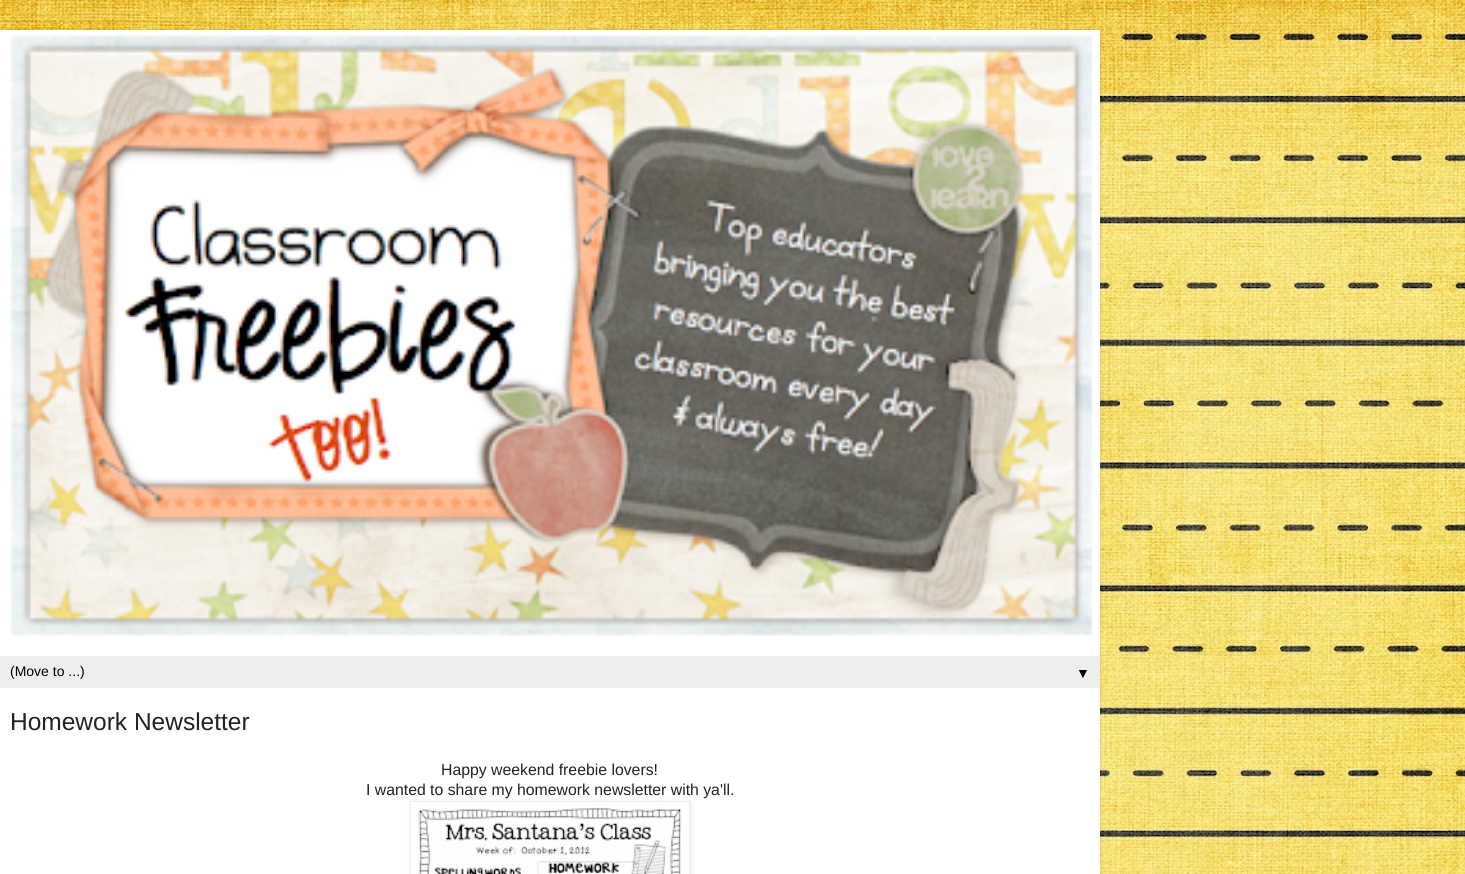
#include <cairo.h>
#include <math.h>
#include <stddef.h>


static void round_rect(cairo_t *cr, double x, double y, double w, double h, double r) {
    cairo_new_sub_path(cr);
    cairo_arc(cr, x + w - r, y + h - r, r, 0, M_PI / 2);
    cairo_arc(cr, x + r, y + h - r, r, M_PI / 2, M_PI);
    cairo_arc(cr, x + r, y + r, r, M_PI, 1.5 * M_PI);
    cairo_arc(cr, x + w - r, y + r, r, 1.5 * M_PI, 2 * M_PI);
    cairo_close_path(cr);
}

static void shadow(cairo_t *cr, double x, double y, double w, double h, double r, double blur, double alpha) {
    cairo_push_group_with_content(cr, CAIRO_CONTENT_ALPHA);
    cairo_set_operator(cr, CAIRO_OPERATOR_SOURCE);
    for (int i = 15; i >= -15 && fmin(w, h) + blur * i / 3 > 0; i -= 2) {
        double e = blur * i / 6;
        cairo_set_source_rgba(cr, 0, 0, 0, alpha * erfc((i - 1) / 8.5) / 2);
        round_rect(cr, x - e, y - e, w + 2 * e, h + 2 * e, fmax(0, fmin(r + e + blur * .6, fmin(w, h) / 2 + e)));
        cairo_fill(cr);
    }
    cairo_pattern_t *soft = cairo_pop_group(cr);
    cairo_mask(cr, soft);
    cairo_pattern_destroy(soft);
}

static void picture(cairo_t *cr, const char *path, double x, double y, double w, double h) {
    cairo_surface_t *image = cairo_image_surface_create_from_png(path);
    cairo_save(cr);
    cairo_set_source_surface(cr, image, x, y);
    cairo_rectangle(cr, x, y, w, h);
    cairo_fill(cr);
    cairo_restore(cr);
    cairo_surface_destroy(image);
}

int main(void) {
    cairo_surface_t *surface = cairo_image_surface_create(CAIRO_FORMAT_RGB24, 1465, 874);
    cairo_t *cr = cairo_create(surface);
    cairo_font_options_t *options = cairo_font_options_create();
    cairo_font_options_set_hint_metrics(options, CAIRO_HINT_METRICS_OFF);
    cairo_font_options_set_hint_style(options, CAIRO_HINT_STYLE_NONE);
    cairo_set_font_options(cr, options);
    cairo_set_miter_limit(cr, 4);
    cairo_set_source_rgb(cr, 1, 1, 1);
    cairo_paint(cr);
    picture(cr, "img1.png", 0, 0, 1465, 874);
    cairo_set_source_rgb(cr, 0, 0, 0);
    shadow(cr, 0, 30, 1100, 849, 0, 1.5, 0.15);
    cairo_set_source_rgb(cr, 1, 1, 1);
    cairo_rectangle(cr, 0, 30, 1100, 844);
    cairo_fill(cr);
    picture(cr, "img2.png", 10, 35, 1083, 601);
    cairo_set_source_rgb(cr, 0.933, 0.933, 0.933);
    cairo_rectangle(cr, 0, 656, 1100, 32);
    cairo_fill(cr);
    cairo_select_font_face(cr, "Liberation Sans", CAIRO_FONT_SLANT_NORMAL, CAIRO_FONT_WEIGHT_NORMAL);
    cairo_set_font_size(cr, 14);
    cairo_set_source_rgb(cr, 0, 0, 0);
    cairo_move_to(cr, 10, 676);
    cairo_show_text(cr, "(Move to ...)");
    cairo_move_to(cr, 1076, 678);
    cairo_show_text(cr, "▼");
    cairo_set_font_size(cr, 24.5);
    cairo_set_source_rgb(cr, 0.133, 0.133, 0.133);
    cairo_move_to(cr, 10, 730);
    cairo_show_text(cr, "Homework Newsletter");
    cairo_set_font_size(cr, 15.8);
    cairo_move_to(cr, 441, 775);
    cairo_show_text(cr, "Happy weekend freebie lovers!");
    cairo_move_to(cr, 366, 795);
    cairo_show_text(cr, "I wanted to share my homework newsletter with ya'll.");
    cairo_save(cr);
    cairo_set_fill_rule(cr, CAIRO_FILL_RULE_EVEN_ODD);
    cairo_new_path(cr);
    cairo_move_to(cr, 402, 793);
    cairo_line_to(cr, 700, 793);
    cairo_line_to(cr, 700, 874);
    cairo_line_to(cr, 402, 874);
    cairo_close_path(cr);
    cairo_move_to(cr, 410, 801);
    cairo_line_to(cr, 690, 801);
    cairo_line_to(cr, 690, 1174);
    cairo_line_to(cr, 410, 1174);
    cairo_close_path(cr);
    cairo_clip(cr);
    cairo_set_source_rgb(cr, 0, 0, 0);
    shadow(cr, 411, 802, 280, 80, 0, 2.5, 0.1);
    cairo_restore(cr);
    cairo_rectangle(cr, 410.5, 801.5, 279, 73);
    cairo_set_source_rgb(cr, 0.933, 0.933, 0.933);
    cairo_set_line_width(cr, 1);
    cairo_stroke(cr);
    picture(cr, "img3.png", 416, 807, 266, 67);
    cairo_surface_write_to_png(surface, "page.png");
    cairo_font_options_destroy(options);
    cairo_destroy(cr);
    cairo_surface_destroy(surface);
    return 0;
}
